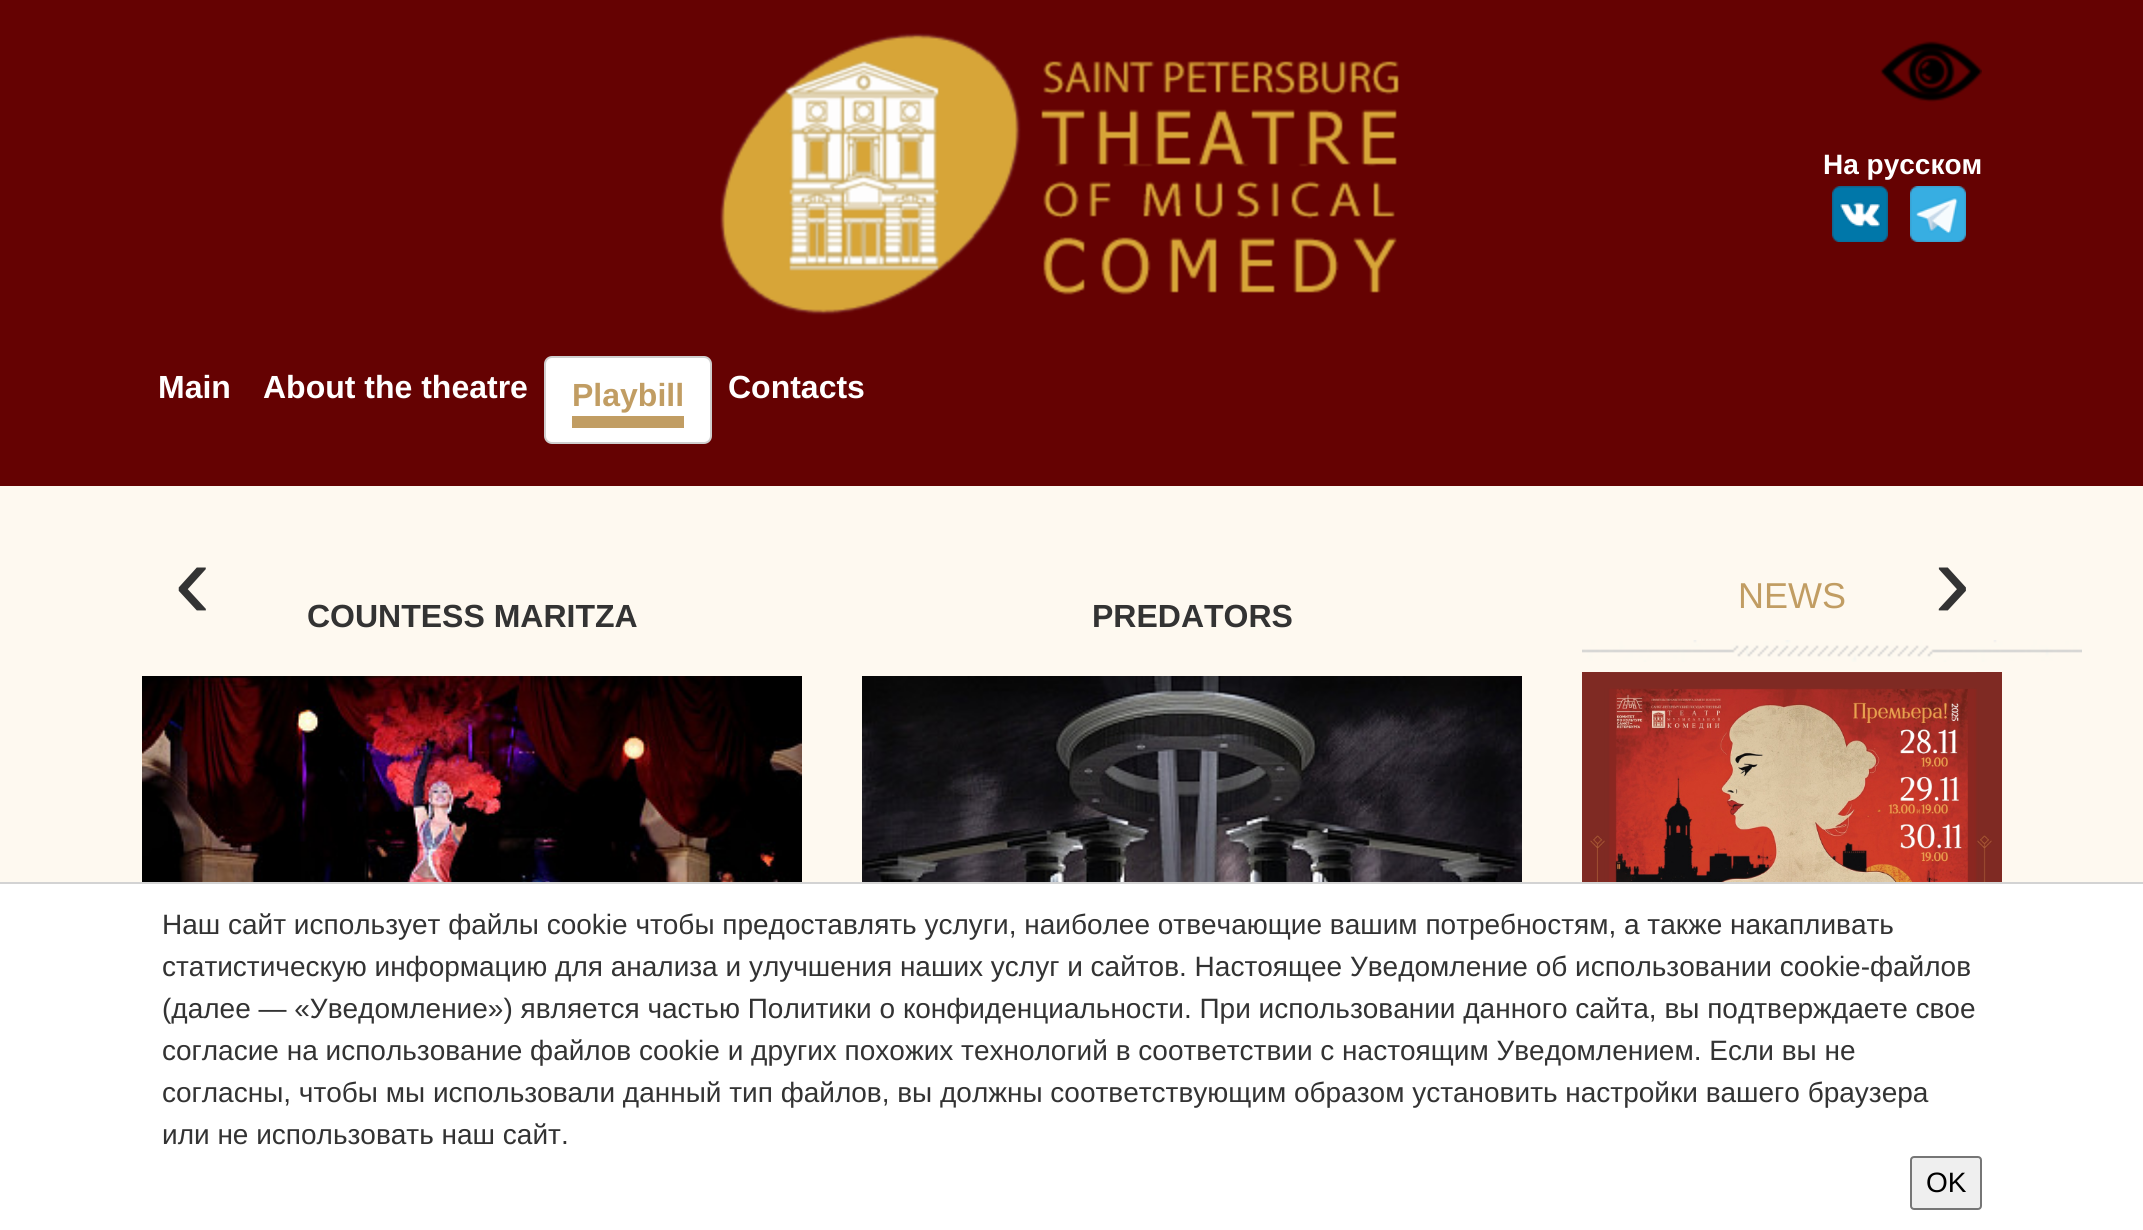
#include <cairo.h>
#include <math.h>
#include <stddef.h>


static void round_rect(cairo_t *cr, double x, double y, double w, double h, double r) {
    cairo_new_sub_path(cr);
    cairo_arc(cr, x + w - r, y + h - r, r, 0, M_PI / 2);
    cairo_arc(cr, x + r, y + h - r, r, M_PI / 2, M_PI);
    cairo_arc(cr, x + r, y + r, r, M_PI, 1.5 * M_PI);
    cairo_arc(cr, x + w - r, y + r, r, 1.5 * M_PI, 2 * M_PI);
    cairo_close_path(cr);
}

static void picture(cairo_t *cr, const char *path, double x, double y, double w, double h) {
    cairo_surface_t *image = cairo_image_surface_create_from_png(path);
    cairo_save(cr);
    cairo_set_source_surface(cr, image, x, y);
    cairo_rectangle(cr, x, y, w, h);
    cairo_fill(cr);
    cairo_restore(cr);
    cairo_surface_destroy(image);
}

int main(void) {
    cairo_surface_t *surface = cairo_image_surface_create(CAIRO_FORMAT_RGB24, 2143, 1230);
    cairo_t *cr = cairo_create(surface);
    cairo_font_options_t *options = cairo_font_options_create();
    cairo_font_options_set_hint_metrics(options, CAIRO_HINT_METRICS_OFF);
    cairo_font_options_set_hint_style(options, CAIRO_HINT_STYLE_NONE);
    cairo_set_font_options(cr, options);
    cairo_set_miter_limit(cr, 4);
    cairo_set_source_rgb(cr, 0.996, 0.976, 0.941);
    cairo_paint(cr);
    cairo_set_source_rgb(cr, 0.396, 0.008, 0.008);
    cairo_rectangle(cr, 0, 0, 2143, 486);
    cairo_fill(cr);
    picture(cr, "img1.png", 720, 33, 679, 282);
    picture(cr, "img2.png", 1880, 41, 102, 61);
    cairo_select_font_face(cr, "Liberation Sans", CAIRO_FONT_SLANT_NORMAL, CAIRO_FONT_WEIGHT_BOLD);
    cairo_set_font_size(cr, 28);
    cairo_set_source_rgb(cr, 1, 1, 1);
    cairo_move_to(cr, 1823, 174);
    cairo_show_text(cr, "На русском");
    picture(cr, "img3.png", 1832, 186, 56, 56);
    picture(cr, "img4.png", 1910, 186, 56, 56);
    cairo_set_font_size(cr, 32);
    cairo_move_to(cr, 158, 398);
    cairo_show_text(cr, "Main");
    cairo_move_to(cr, 263, 398);
    cairo_show_text(cr, "About the theatre");
    round_rect(cr, 545, 357, 166, 86, 7);
    cairo_fill_preserve(cr);
    cairo_set_source_rgb(cr, 0.812, 0.812, 0.812);
    cairo_stroke(cr);
    cairo_set_source_rgb(cr, 0.757, 0.616, 0.388);
    cairo_rectangle(cr, 572, 416, 112, 12);
    cairo_fill(cr);
    cairo_move_to(cr, 572, 406);
    cairo_show_text(cr, "Playbill");
    cairo_set_source_rgb(cr, 1, 1, 1);
    cairo_move_to(cr, 728, 398);
    cairo_show_text(cr, "Contacts");
    cairo_select_font_face(cr, "Liberation Sans", CAIRO_FONT_SLANT_NORMAL, CAIRO_FONT_WEIGHT_NORMAL);
    cairo_set_font_size(cr, 110);
    cairo_set_source_rgb(cr, 0.2, 0.2, 0.2);
    cairo_move_to(cr, 174, 618);
    cairo_show_text(cr, "‹");
    cairo_move_to(cr, 1934, 618);
    cairo_show_text(cr, "›");
    cairo_set_font_size(cr, 36);
    cairo_set_source_rgb(cr, 0.757, 0.616, 0.388);
    cairo_move_to(cr, 1738, 608);
    cairo_show_text(cr, "NEWS");
    picture(cr, "img5.png", 1582, 640, 500, 22);
    picture(cr, "img6.png", 1582, 672, 420, 210);
    cairo_select_font_face(cr, "Liberation Sans", CAIRO_FONT_SLANT_NORMAL, CAIRO_FONT_WEIGHT_BOLD);
    cairo_set_font_size(cr, 32);
    cairo_set_source_rgb(cr, 0.2, 0.2, 0.2);
    cairo_move_to(cr, 307, 627);
    cairo_show_text(cr, "COUNTESS MARITZA");
    picture(cr, "img7.png", 142, 676, 660, 206);
    cairo_move_to(cr, 1092, 627);
    cairo_show_text(cr, "PREDATORS");
    picture(cr, "img8.png", 862, 676, 660, 206);
    cairo_set_source_rgb(cr, 1, 1, 1);
    cairo_rectangle(cr, 0, 884, 2143, 346);
    cairo_fill(cr);
    cairo_set_source_rgb(cr, 0.827, 0.827, 0.827);
    cairo_rectangle(cr, 0, 882, 2143, 2);
    cairo_fill(cr);
    cairo_select_font_face(cr, "Liberation Sans", CAIRO_FONT_SLANT_NORMAL, CAIRO_FONT_WEIGHT_NORMAL);
    cairo_set_font_size(cr, 28);
    cairo_set_source_rgb(cr, 0.2, 0.2, 0.2);
    cairo_move_to(cr, 162, 934);
    cairo_show_text(cr, "Наш сайт использует файлы cookie чтобы предоставлять услуги, наиболее отвечающие вашим потребностям, а также накапливать");
    cairo_move_to(cr, 162, 976);
    cairo_show_text(cr, "статистическую информацию для анализа и улучшения наших услуг и сайтов. Настоящее Уведомление об использовании cookie-файлов");
    cairo_move_to(cr, 162, 1018);
    cairo_show_text(cr, "(далее — «Уведомление») является частью Политики о конфиденциальности. При использовании данного сайта, вы подтверждаете свое");
    cairo_move_to(cr, 162, 1060);
    cairo_show_text(cr, "согласие на использование файлов cookie и других похожих технологий в соответствии с настоящим Уведомлением. Если вы не");
    cairo_move_to(cr, 162, 1102);
    cairo_show_text(cr, "согласны, чтобы мы использовали данный тип файлов, вы должны соответствующим образом установить настройки вашего браузера");
    cairo_move_to(cr, 162, 1144);
    cairo_show_text(cr, "или не использовать наш сайт.");
    cairo_set_source_rgb(cr, 0.937, 0.937, 0.937);
    round_rect(cr, 1911, 1157, 70, 52, 3);
    cairo_fill_preserve(cr);
    cairo_set_source_rgb(cr, 0.463, 0.463, 0.463);
    cairo_stroke(cr);
    cairo_set_source_rgb(cr, 0, 0, 0);
    cairo_move_to(cr, 1926, 1192);
    cairo_show_text(cr, "OK");
    cairo_surface_write_to_png(surface, "page.png");
    cairo_font_options_destroy(options);
    cairo_destroy(cr);
    cairo_surface_destroy(surface);
    return 0;
}
